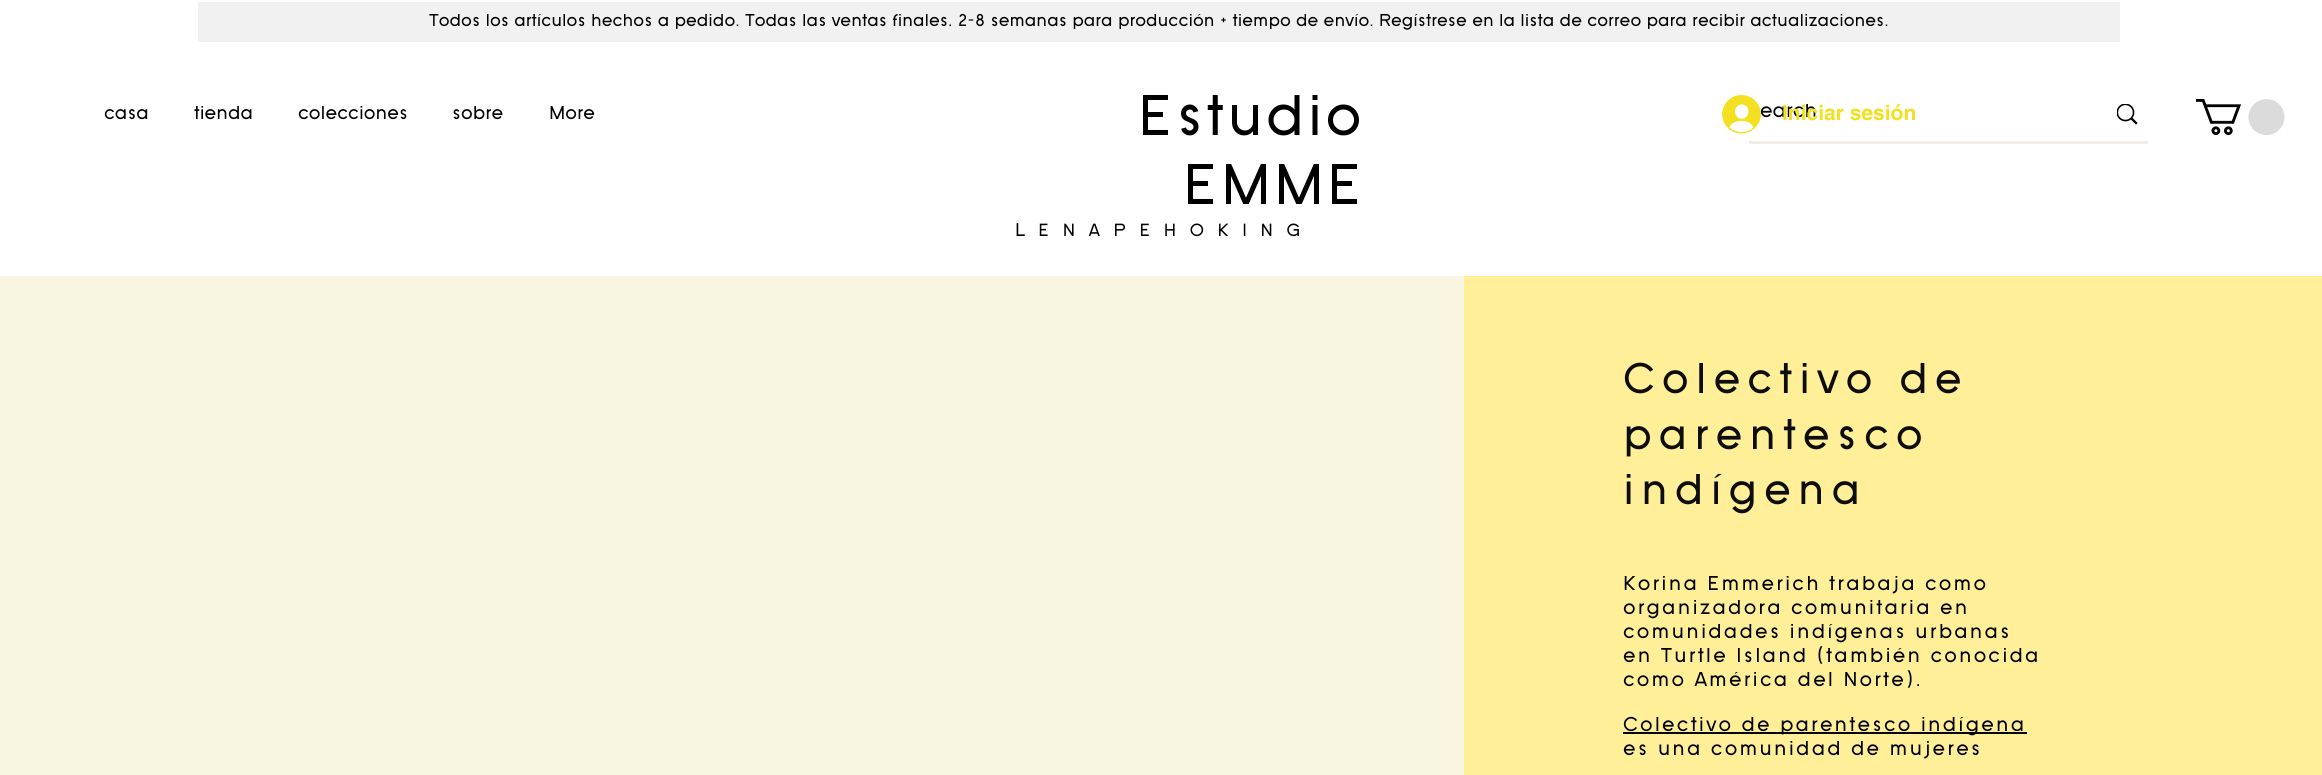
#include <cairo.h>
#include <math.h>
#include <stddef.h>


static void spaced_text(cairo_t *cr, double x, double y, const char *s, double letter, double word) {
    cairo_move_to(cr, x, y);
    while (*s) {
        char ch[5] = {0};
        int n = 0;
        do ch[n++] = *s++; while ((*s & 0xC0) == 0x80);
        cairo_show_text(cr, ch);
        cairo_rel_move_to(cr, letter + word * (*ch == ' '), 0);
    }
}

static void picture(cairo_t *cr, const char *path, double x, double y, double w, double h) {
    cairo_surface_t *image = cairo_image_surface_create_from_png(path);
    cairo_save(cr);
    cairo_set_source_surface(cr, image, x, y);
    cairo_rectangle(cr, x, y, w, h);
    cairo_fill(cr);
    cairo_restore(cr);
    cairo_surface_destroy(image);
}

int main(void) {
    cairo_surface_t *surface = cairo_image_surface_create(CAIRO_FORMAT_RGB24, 2322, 775);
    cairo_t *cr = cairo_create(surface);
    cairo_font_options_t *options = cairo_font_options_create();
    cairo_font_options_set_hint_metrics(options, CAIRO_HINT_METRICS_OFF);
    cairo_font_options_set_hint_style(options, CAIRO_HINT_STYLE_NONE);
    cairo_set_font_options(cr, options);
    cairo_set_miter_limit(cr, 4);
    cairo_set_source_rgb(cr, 1, 1, 1);
    cairo_paint(cr);
    cairo_set_source_rgb(cr, 0.945, 0.945, 0.945);
    cairo_rectangle(cr, 198, 2, 1922, 40);
    cairo_fill(cr);
    cairo_select_font_face(cr, "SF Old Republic", CAIRO_FONT_SLANT_NORMAL, CAIRO_FONT_WEIGHT_NORMAL);
    cairo_set_font_size(cr, 18);
    cairo_set_source_rgb(cr, 0, 0, 0);
    cairo_move_to(cr, 429, 26);
    cairo_show_text(cr, "Todos los artículos hechos a pedido. Todas las ventas finales. 2-8 semanas para producción + tiempo de envío. Regístrese en la lista de correo para recibir actualizaciones.");
    cairo_set_font_size(cr, 19.5);
    cairo_move_to(cr, 104, 119);
    cairo_show_text(cr, "casa");
    cairo_move_to(cr, 194, 119);
    cairo_show_text(cr, "tienda");
    cairo_move_to(cr, 298, 119);
    cairo_show_text(cr, "colecciones");
    cairo_move_to(cr, 452, 119);
    cairo_show_text(cr, "sobre");
    cairo_move_to(cr, 549, 119);
    cairo_show_text(cr, "More");
    cairo_set_font_size(cr, 60);
    spaced_text(cr, 1138, 135, "Estudio", 3, 0);
    spaced_text(cr, 1183, 204, "EMME", 3, 0);
    cairo_select_font_face(cr, "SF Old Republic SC", CAIRO_FONT_SLANT_NORMAL, CAIRO_FONT_WEIGHT_NORMAL);
    cairo_set_font_size(cr, 19.5);
    spaced_text(cr, 1015, 236, "Lenapehoking", 13.6, 0);
    cairo_set_source_rgb(cr, 0.949, 0.929, 0.902);
    cairo_rectangle(cr, 1749, 141, 399, 3);
    cairo_fill(cr);
    cairo_save(cr);
    cairo_rectangle(cr, 1749, 104, 305, 18);
    cairo_clip(cr);
    cairo_select_font_face(cr, "SF Old Republic", CAIRO_FONT_SLANT_NORMAL, CAIRO_FONT_WEIGHT_NORMAL);
    cairo_set_font_size(cr, 21);
    cairo_set_source_rgb(cr, 0, 0, 0);
    cairo_move_to(cr, 1760, 117);
    cairo_show_text(cr, "earch");
    cairo_restore(cr);
    picture(cr, "img1.png", 2117, 104, 21, 21);
    picture(cr, "img2.png", 2196, 99, 89, 37);
    picture(cr, "img3.png", 1722, 95, 39, 39);
    cairo_select_font_face(cr, "helvetica", CAIRO_FONT_SLANT_NORMAL, CAIRO_FONT_WEIGHT_BOLD);
    cairo_set_font_size(cr, 21);
    cairo_set_source_rgb(cr, 0.949, 0.878, 0.129);
    cairo_move_to(cr, 1782, 120);
    cairo_show_text(cr, "Iniciar sesión");
    cairo_set_source_rgb(cr, 0.969, 0.961, 0.882);
    cairo_rectangle(cr, 0, 276, 1464, 499);
    cairo_fill(cr);
    cairo_set_source_rgb(cr, 1, 0.937, 0.596);
    cairo_rectangle(cr, 1464, 276, 858, 499);
    cairo_fill(cr);
    cairo_select_font_face(cr, "SF Old Republic", CAIRO_FONT_SLANT_NORMAL, CAIRO_FONT_WEIGHT_NORMAL);
    cairo_set_font_size(cr, 45);
    cairo_set_source_rgb(cr, 0.051, 0.051, 0.051);
    spaced_text(cr, 1623, 393, "Colectivo de", 6.75, 0);
    spaced_text(cr, 1623, 449, "parentesco", 6.75, 0);
    spaced_text(cr, 1623, 504, "indígena", 6.75, 0);
    cairo_set_font_size(cr, 21);
    cairo_set_source_rgb(cr, 0, 0, 0);
    spaced_text(cr, 1623, 590, "Korina Emmerich trabaja como", 2.1, 0);
    spaced_text(cr, 1623, 614, "organizadora comunitaria en", 2.1, 0);
    spaced_text(cr, 1623, 638, "comunidades indígenas urbanas", 2.1, 0);
    spaced_text(cr, 1623, 662, "en Turtle Island (también conocida", 2.1, 0);
    spaced_text(cr, 1623, 686, "como América del Norte).", 2.1, 0);
    cairo_rectangle(cr, 1623, 732, 404, 2);
    cairo_fill(cr);
    spaced_text(cr, 1623, 731, "Colectivo de parentesco indígena", 2.1, 0);
    spaced_text(cr, 1623, 755, "es una comunidad de mujeres", 2.1, 0);
    cairo_surface_write_to_png(surface, "page.png");
    cairo_font_options_destroy(options);
    cairo_destroy(cr);
    cairo_surface_destroy(surface);
    return 0;
}
